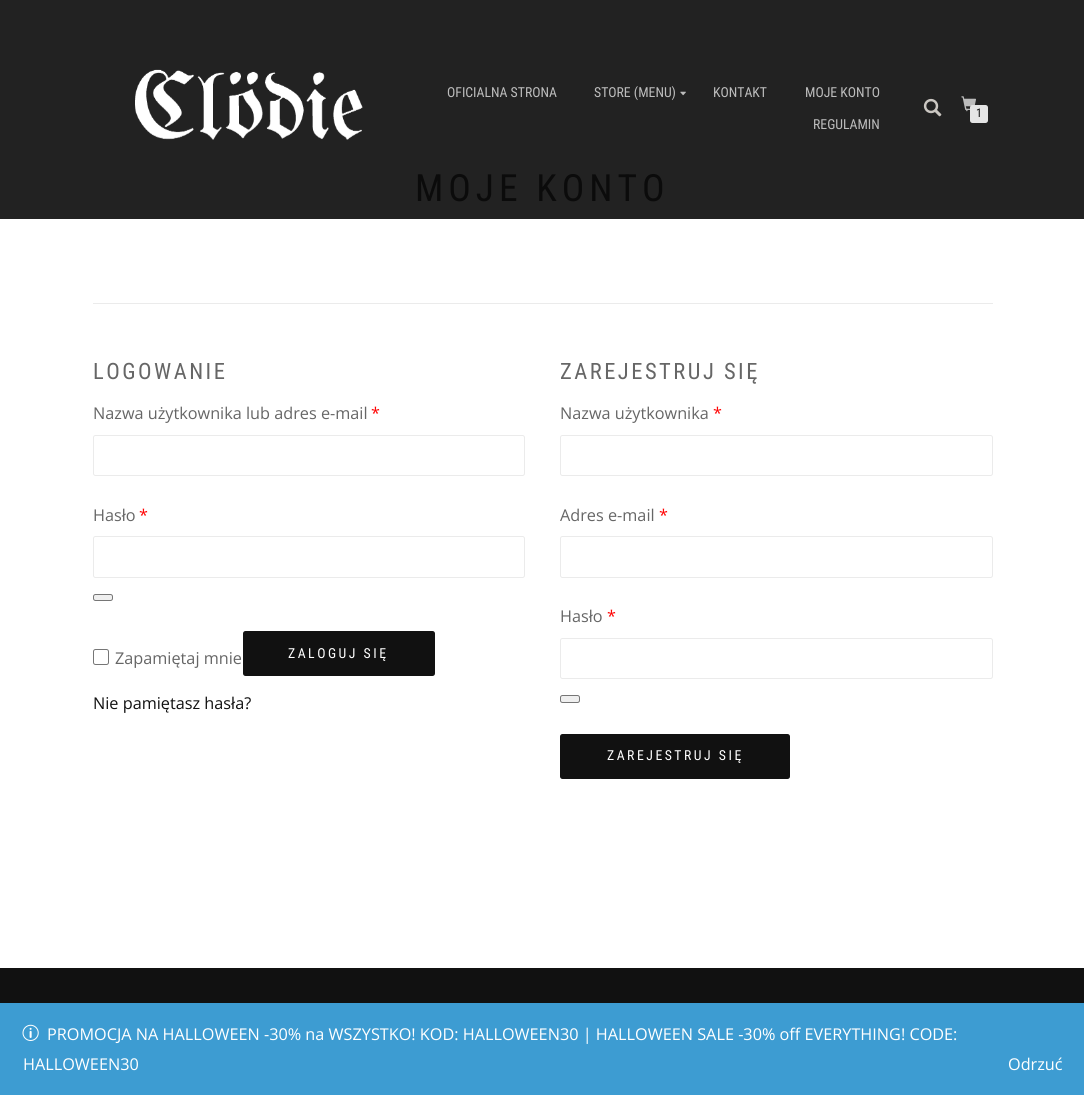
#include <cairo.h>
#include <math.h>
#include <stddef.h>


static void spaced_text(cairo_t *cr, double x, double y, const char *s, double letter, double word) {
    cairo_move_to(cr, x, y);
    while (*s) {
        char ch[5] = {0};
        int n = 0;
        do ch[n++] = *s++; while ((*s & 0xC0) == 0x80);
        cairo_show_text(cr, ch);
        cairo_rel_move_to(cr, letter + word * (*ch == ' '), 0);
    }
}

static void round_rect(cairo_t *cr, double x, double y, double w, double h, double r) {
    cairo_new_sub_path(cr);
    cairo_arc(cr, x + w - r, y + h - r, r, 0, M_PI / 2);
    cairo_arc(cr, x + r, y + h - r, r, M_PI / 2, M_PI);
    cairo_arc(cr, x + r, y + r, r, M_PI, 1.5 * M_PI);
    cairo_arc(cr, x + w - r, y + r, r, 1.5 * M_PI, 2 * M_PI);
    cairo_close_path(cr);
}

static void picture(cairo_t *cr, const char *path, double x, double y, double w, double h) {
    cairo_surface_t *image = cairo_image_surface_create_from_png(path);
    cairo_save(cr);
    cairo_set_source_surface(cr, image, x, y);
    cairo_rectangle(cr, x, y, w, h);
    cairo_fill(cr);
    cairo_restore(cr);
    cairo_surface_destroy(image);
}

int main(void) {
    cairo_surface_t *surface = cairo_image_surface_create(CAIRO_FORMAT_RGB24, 1084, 1095);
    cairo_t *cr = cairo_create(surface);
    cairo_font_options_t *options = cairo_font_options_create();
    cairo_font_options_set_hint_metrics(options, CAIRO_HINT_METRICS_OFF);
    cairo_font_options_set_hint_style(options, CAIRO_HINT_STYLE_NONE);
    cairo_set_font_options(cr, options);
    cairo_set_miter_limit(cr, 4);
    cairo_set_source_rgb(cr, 1, 1, 1);
    cairo_paint(cr);
    cairo_set_source_rgb(cr, 0.133, 0.133, 0.133);
    cairo_rectangle(cr, 0, 0, 1084, 219);
    cairo_fill(cr);
    picture(cr, "img1.png", 135, 69, 228, 71);
    cairo_select_font_face(cr, "Roboto Condensed", CAIRO_FONT_SLANT_NORMAL, CAIRO_FONT_WEIGHT_NORMAL);
    cairo_set_font_size(cr, 13.75);
    cairo_set_source_rgb(cr, 0.741, 0.741, 0.741);
    cairo_move_to(cr, 447, 97);
    cairo_show_text(cr, "OFICIALNA STRONA");
    cairo_move_to(cr, 594, 97);
    cairo_show_text(cr, "STORE (MENU)");
    picture(cr, "img2.png", 680, 91, 6, 5);
    cairo_move_to(cr, 713, 97);
    cairo_show_text(cr, "KONTAKT");
    cairo_move_to(cr, 805, 97);
    cairo_show_text(cr, "MOJE KONTO");
    cairo_move_to(cr, 813, 129);
    cairo_show_text(cr, "REGULAMIN");
    picture(cr, "img3.png", 923, 98, 19, 19);
    picture(cr, "img4.png", 961, 96, 15, 16);
    cairo_set_source_rgb(cr, 0.898, 0.898, 0.898);
    round_rect(cr, 970, 105, 18, 18, 2.5);
    cairo_fill(cr);
    cairo_set_font_size(cr, 12);
    cairo_set_source_rgb(cr, 0.067, 0.067, 0.067);
    cairo_move_to(cr, 976, 117);
    cairo_show_text(cr, "1");
    cairo_set_font_size(cr, 37.5);
    cairo_set_source_rgb(cr, 0.043, 0.043, 0.043);
    spaced_text(cr, 415, 201, "MOJE KONTO", 5, 0);
    cairo_set_source_rgb(cr, 0.918, 0.918, 0.918);
    cairo_rectangle(cr, 93, 303, 900, 1);
    cairo_fill(cr);
    cairo_set_font_size(cr, 22.5);
    cairo_set_source_rgb(cr, 0.4, 0.4, 0.4);
    spaced_text(cr, 93, 379, "LOGOWANIE", 2.5, 0);
    cairo_select_font_face(cr, "Open Sans", CAIRO_FONT_SLANT_NORMAL, CAIRO_FONT_WEIGHT_NORMAL);
    cairo_set_font_size(cr, 16.25);
    cairo_move_to(cr, 93, 419);
    cairo_show_text(cr, "Nazwa użytkownika lub adres e-mail");
    cairo_set_source_rgb(cr, 1, 0, 0);
    cairo_move_to(cr, 371, 419);
    cairo_show_text(cr, "*");
    round_rect(cr, 93.5, 435.5, 431, 40, 2);
    cairo_set_source_rgb(cr, 0.918, 0.918, 0.918);
    cairo_set_line_width(cr, 1);
    cairo_stroke(cr);
    cairo_set_source_rgb(cr, 0.4, 0.4, 0.4);
    cairo_move_to(cr, 93, 521);
    cairo_show_text(cr, "Hasło");
    cairo_set_source_rgb(cr, 1, 0, 0);
    cairo_move_to(cr, 139, 521);
    cairo_show_text(cr, "*");
    round_rect(cr, 93.5, 536.5, 431, 41, 2);
    cairo_set_source_rgb(cr, 0.918, 0.918, 0.918);
    cairo_stroke(cr);
    cairo_set_source_rgb(cr, 0.937, 0.937, 0.937);
    round_rect(cr, 93.5, 594.5, 19, 6, 2);
    cairo_fill_preserve(cr);
    cairo_set_source_rgb(cr, 0.463, 0.463, 0.463);
    cairo_stroke(cr);
    round_rect(cr, 93.5, 649.5, 15, 15, 2);
    cairo_stroke(cr);
    cairo_set_source_rgb(cr, 0.4, 0.4, 0.4);
    cairo_move_to(cr, 115, 664);
    cairo_show_text(cr, "Zapamiętaj mnie");
    cairo_set_source_rgb(cr, 0.067, 0.067, 0.067);
    round_rect(cr, 243, 631, 192, 45, 2.5);
    cairo_fill(cr);
    cairo_select_font_face(cr, "Roboto Condensed", CAIRO_FONT_SLANT_NORMAL, CAIRO_FONT_WEIGHT_NORMAL);
    cairo_set_font_size(cr, 13.75);
    cairo_set_source_rgb(cr, 1, 1, 1);
    spaced_text(cr, 288, 658, "ZALOGUJ SIĘ", 2.5, 0);
    cairo_select_font_face(cr, "Open Sans", CAIRO_FONT_SLANT_NORMAL, CAIRO_FONT_WEIGHT_NORMAL);
    cairo_set_font_size(cr, 16.25);
    cairo_set_source_rgb(cr, 0.067, 0.067, 0.067);
    cairo_move_to(cr, 93, 709);
    cairo_show_text(cr, "Nie pamiętasz hasła?");
    cairo_select_font_face(cr, "Roboto Condensed", CAIRO_FONT_SLANT_NORMAL, CAIRO_FONT_WEIGHT_NORMAL);
    cairo_set_font_size(cr, 22.5);
    cairo_set_source_rgb(cr, 0.4, 0.4, 0.4);
    spaced_text(cr, 560, 379, "ZAREJESTRUJ SIĘ", 2.5, 0);
    cairo_select_font_face(cr, "Open Sans", CAIRO_FONT_SLANT_NORMAL, CAIRO_FONT_WEIGHT_NORMAL);
    cairo_set_font_size(cr, 16.25);
    cairo_move_to(cr, 560, 419);
    cairo_show_text(cr, "Nazwa użytkownika");
    cairo_set_source_rgb(cr, 1, 0, 0);
    cairo_move_to(cr, 713, 419);
    cairo_show_text(cr, "*");
    round_rect(cr, 560.5, 435.5, 432, 40, 2);
    cairo_set_source_rgb(cr, 0.918, 0.918, 0.918);
    cairo_stroke(cr);
    cairo_set_source_rgb(cr, 0.4, 0.4, 0.4);
    cairo_move_to(cr, 560, 521);
    cairo_show_text(cr, "Adres e-mail");
    cairo_set_source_rgb(cr, 1, 0, 0);
    cairo_move_to(cr, 659, 521);
    cairo_show_text(cr, "*");
    round_rect(cr, 560.5, 536.5, 432, 41, 2);
    cairo_set_source_rgb(cr, 0.918, 0.918, 0.918);
    cairo_stroke(cr);
    cairo_set_source_rgb(cr, 0.4, 0.4, 0.4);
    cairo_move_to(cr, 560, 622);
    cairo_show_text(cr, "Hasło");
    cairo_set_source_rgb(cr, 1, 0, 0);
    cairo_move_to(cr, 607, 622);
    cairo_show_text(cr, "*");
    round_rect(cr, 560.5, 638.5, 432, 40, 2);
    cairo_set_source_rgb(cr, 0.918, 0.918, 0.918);
    cairo_stroke(cr);
    cairo_set_source_rgb(cr, 0.937, 0.937, 0.937);
    round_rect(cr, 560.5, 695.5, 19, 7, 2);
    cairo_fill_preserve(cr);
    cairo_set_source_rgb(cr, 0.463, 0.463, 0.463);
    cairo_stroke(cr);
    cairo_set_source_rgb(cr, 0.067, 0.067, 0.067);
    round_rect(cr, 560, 734, 230, 45, 2.5);
    cairo_fill(cr);
    cairo_select_font_face(cr, "Roboto Condensed", CAIRO_FONT_SLANT_NORMAL, CAIRO_FONT_WEIGHT_NORMAL);
    cairo_set_font_size(cr, 13.75);
    cairo_set_source_rgb(cr, 1, 1, 1);
    spaced_text(cr, 607, 760, "ZAREJESTRUJ SIĘ", 2.5, 0);
    cairo_set_source_rgb(cr, 0.067, 0.067, 0.067);
    cairo_rectangle(cr, 0, 968, 1084, 35);
    cairo_fill(cr);
    cairo_set_source_rgb(cr, 0.239, 0.612, 0.824);
    cairo_rectangle(cr, 0, 1003, 1084, 92);
    cairo_fill(cr);
    picture(cr, "img5.png", 22, 1024, 17, 17);
    cairo_select_font_face(cr, "Open Sans", CAIRO_FONT_SLANT_NORMAL, CAIRO_FONT_WEIGHT_NORMAL);
    cairo_set_font_size(cr, 16.25);
    cairo_set_source_rgb(cr, 1, 1, 1);
    cairo_move_to(cr, 47, 1040);
    cairo_show_text(cr, "PROMOCJA NA HALLOWEEN -30% na WSZYSTKO! KOD: HALLOWEEN30 | HALLOWEEN SALE -30% off EVERYTHING! CODE:");
    cairo_move_to(cr, 23, 1070);
    cairo_show_text(cr, "HALLOWEEN30");
    cairo_move_to(cr, 1008, 1070);
    cairo_show_text(cr, "Odrzuć");
    cairo_surface_write_to_png(surface, "page.png");
    cairo_font_options_destroy(options);
    cairo_destroy(cr);
    cairo_surface_destroy(surface);
    return 0;
}
